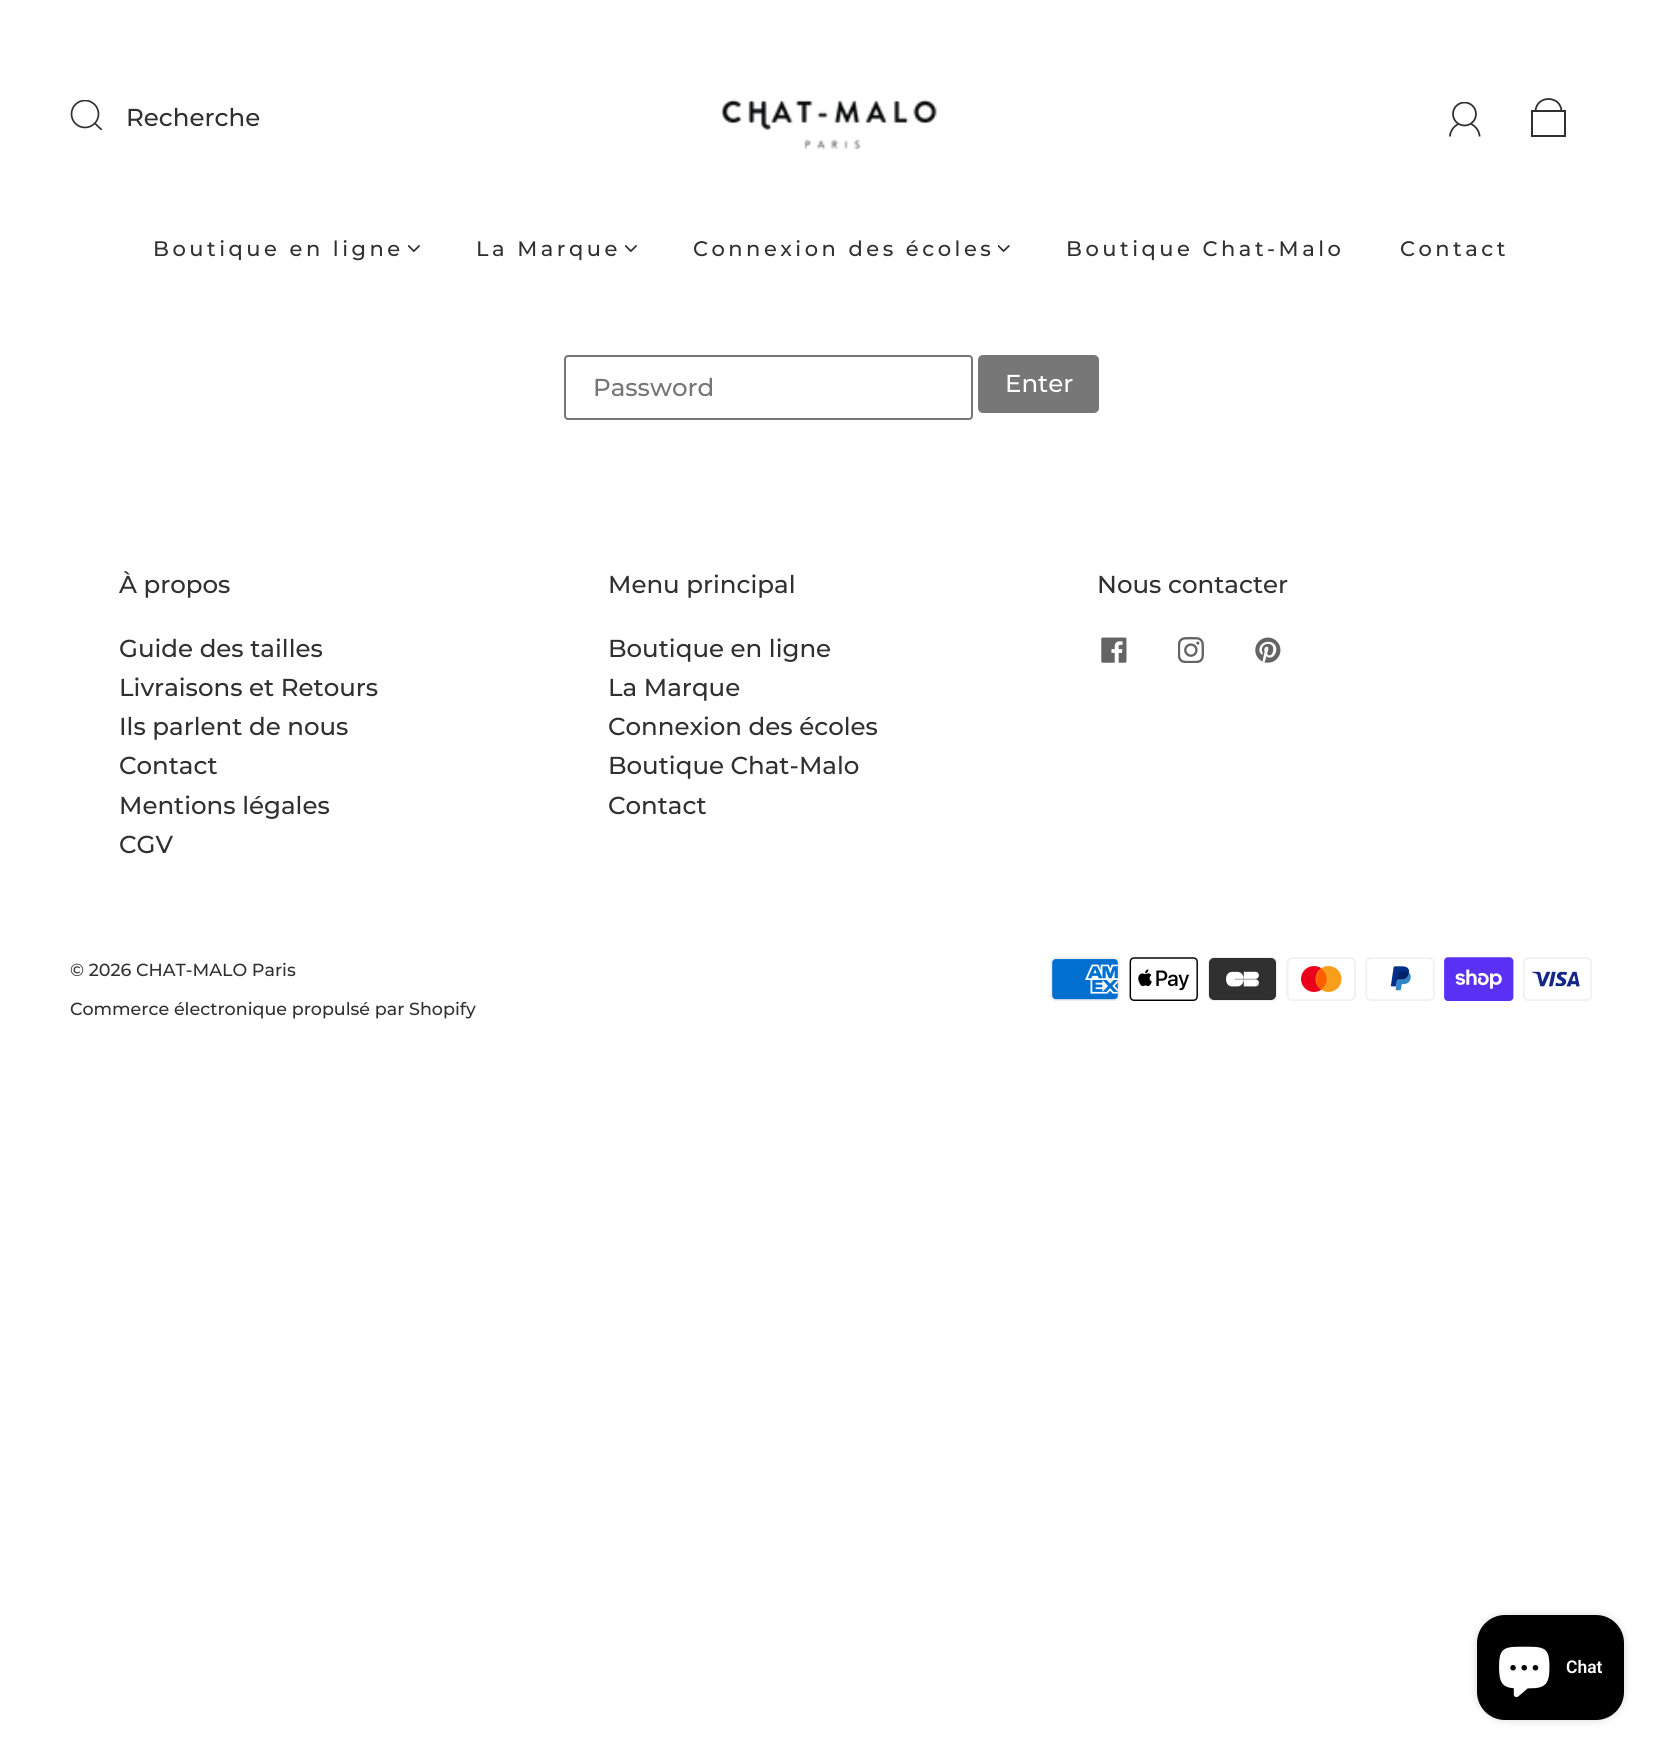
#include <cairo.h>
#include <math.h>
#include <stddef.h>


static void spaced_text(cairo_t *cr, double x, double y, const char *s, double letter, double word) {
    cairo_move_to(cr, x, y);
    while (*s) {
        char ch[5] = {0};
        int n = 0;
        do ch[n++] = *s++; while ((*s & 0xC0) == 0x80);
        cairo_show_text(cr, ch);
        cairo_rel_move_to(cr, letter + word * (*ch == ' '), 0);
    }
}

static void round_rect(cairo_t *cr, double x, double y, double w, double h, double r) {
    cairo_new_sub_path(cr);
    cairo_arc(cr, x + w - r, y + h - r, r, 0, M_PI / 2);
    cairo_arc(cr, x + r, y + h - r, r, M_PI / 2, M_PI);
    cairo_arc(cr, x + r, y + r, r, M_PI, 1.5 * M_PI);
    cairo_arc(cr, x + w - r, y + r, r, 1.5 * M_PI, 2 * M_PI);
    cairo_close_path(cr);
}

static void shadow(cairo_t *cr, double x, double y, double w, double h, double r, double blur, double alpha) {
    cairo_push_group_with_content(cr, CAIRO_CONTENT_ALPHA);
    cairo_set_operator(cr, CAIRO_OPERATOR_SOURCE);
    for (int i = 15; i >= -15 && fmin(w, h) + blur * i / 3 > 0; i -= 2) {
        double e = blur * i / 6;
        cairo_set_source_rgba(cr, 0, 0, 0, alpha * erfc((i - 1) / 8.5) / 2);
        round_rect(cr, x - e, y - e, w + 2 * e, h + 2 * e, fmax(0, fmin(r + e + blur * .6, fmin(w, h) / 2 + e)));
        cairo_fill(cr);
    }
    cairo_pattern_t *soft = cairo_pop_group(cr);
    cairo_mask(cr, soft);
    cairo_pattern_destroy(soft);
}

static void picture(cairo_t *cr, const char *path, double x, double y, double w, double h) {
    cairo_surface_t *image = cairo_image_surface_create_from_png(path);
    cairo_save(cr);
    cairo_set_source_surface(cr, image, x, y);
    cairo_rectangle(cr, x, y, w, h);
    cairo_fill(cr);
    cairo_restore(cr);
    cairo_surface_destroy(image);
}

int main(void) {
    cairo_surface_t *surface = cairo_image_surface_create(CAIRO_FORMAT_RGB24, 1662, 1757);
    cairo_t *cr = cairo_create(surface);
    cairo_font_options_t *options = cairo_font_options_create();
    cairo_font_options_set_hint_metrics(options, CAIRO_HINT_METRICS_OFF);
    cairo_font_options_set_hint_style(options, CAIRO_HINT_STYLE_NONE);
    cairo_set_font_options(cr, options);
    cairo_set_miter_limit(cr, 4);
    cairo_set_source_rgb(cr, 1, 1, 1);
    cairo_paint(cr);
    cairo_save(cr);
    cairo_rectangle(cr, 70, 100, 32, 30);
    cairo_clip(cr);
    cairo_arc(cr, 85, 114, 13.5, 0, 2 * M_PI);
    cairo_set_source_rgb(cr, 0.188, 0.188, 0.188);
    cairo_set_line_width(cr, 1.7);
    cairo_stroke(cr);
    cairo_new_path(cr);
    cairo_move_to(cr, 94.5, 123);
    cairo_line_to(cr, 104, 132);
    cairo_stroke(cr);
    cairo_restore(cr);
    cairo_select_font_face(cr, "Montserrat Medium", CAIRO_FONT_SLANT_NORMAL, CAIRO_FONT_WEIGHT_NORMAL);
    cairo_set_font_size(cr, 24.5);
    cairo_set_source_rgb(cr, 0.188, 0.188, 0.188);
    cairo_move_to(cr, 126, 126);
    cairo_show_text(cr, "Recherche");
    picture(cr, "img1.png", 721, 99, 216, 51);
    picture(cr, "img2.png", 1449, 102, 32, 35);
    cairo_new_path(cr);
    cairo_move_to(cr, 1535.5, 111);
    cairo_curve_to(cr, 1536.5, 95, 1560.5, 95, 1561.5, 111);
    cairo_close_path(cr);
    cairo_set_line_width(cr, 1.8);
    cairo_stroke(cr);
    cairo_rectangle(cr, 1532, 111, 33, 25);
    cairo_set_line_width(cr, 2);
    cairo_stroke(cr);
    cairo_set_font_size(cr, 21);
    spaced_text(cr, 153, 256, "Boutique en ligne", 3.5, 0);
    picture(cr, "img3.png", 408, 245, 12, 7);
    spaced_text(cr, 476, 256, "La Marque", 3.5, 0);
    picture(cr, "img3.png", 625, 245, 12, 7);
    spaced_text(cr, 693, 256, "Connexion des écoles", 3.5, 0);
    picture(cr, "img4.png", 998, 245, 12, 7);
    spaced_text(cr, 1066, 256, "Boutique Chat-Malo", 3.5, 0);
    spaced_text(cr, 1400, 256, "Contact", 3.5, 0);
    round_rect(cr, 565, 356, 407, 63, 3);
    cairo_set_source_rgb(cr, 0.463, 0.463, 0.463);
    cairo_stroke(cr);
    cairo_set_font_size(cr, 24.5);
    cairo_set_source_rgb(cr, 0.459, 0.459, 0.459);
    cairo_move_to(cr, 593, 396);
    cairo_show_text(cr, "Password");
    cairo_set_source_rgb(cr, 0.467, 0.467, 0.467);
    round_rect(cr, 978, 355, 121, 58, 5);
    cairo_fill(cr);
    cairo_set_source_rgb(cr, 1, 1, 1);
    cairo_move_to(cr, 1005, 392);
    cairo_show_text(cr, "Enter");
    cairo_set_source_rgb(cr, 0.188, 0.188, 0.188);
    cairo_move_to(cr, 119, 593);
    cairo_show_text(cr, "À propos");
    cairo_move_to(cr, 119, 657);
    cairo_show_text(cr, "Guide des tailles");
    cairo_move_to(cr, 119, 696);
    cairo_show_text(cr, "Livraisons et Retours");
    cairo_move_to(cr, 119, 735);
    cairo_show_text(cr, "Ils parlent de nous");
    cairo_move_to(cr, 119, 774);
    cairo_show_text(cr, "Contact");
    cairo_move_to(cr, 119, 814);
    cairo_show_text(cr, "Mentions légales");
    cairo_move_to(cr, 119, 853);
    cairo_show_text(cr, "CGV");
    cairo_move_to(cr, 608, 593);
    cairo_show_text(cr, "Menu principal");
    cairo_move_to(cr, 608, 657);
    cairo_show_text(cr, "Boutique en ligne");
    cairo_move_to(cr, 608, 696);
    cairo_show_text(cr, "La Marque");
    cairo_move_to(cr, 608, 735);
    cairo_show_text(cr, "Connexion des écoles");
    cairo_move_to(cr, 608, 774);
    cairo_show_text(cr, "Boutique Chat-Malo");
    cairo_move_to(cr, 608, 814);
    cairo_show_text(cr, "Contact");
    cairo_move_to(cr, 1097, 593);
    cairo_show_text(cr, "Nous contacter");
    picture(cr, "img5.png", 1101, 637, 26, 26);
    picture(cr, "img6.png", 1178, 637, 26, 26);
    picture(cr, "img7.png", 1255, 637, 26, 26);
    cairo_set_font_size(cr, 17.5);
    cairo_move_to(cr, 70, 976);
    cairo_show_text(cr, "© 2026 CHAT-MALO Paris");
    cairo_move_to(cr, 70, 1015);
    cairo_show_text(cr, "Commerce électronique propulsé par Shopify");
    picture(cr, "img8.png", 1050, 957, 70, 44);
    picture(cr, "img9.png", 1129, 957, 69, 44);
    picture(cr, "img10.png", 1208, 957, 69, 44);
    picture(cr, "img11.png", 1286, 957, 70, 44);
    picture(cr, "img12.png", 1365, 957, 70, 44);
    picture(cr, "img13.png", 1444, 957, 70, 44);
    picture(cr, "img14.png", 1523, 957, 69, 44);
    cairo_set_source_rgb(cr, 0, 0, 0);
    shadow(cr, 1477, 1615, 147, 105, 28, 4.5, 0.15);
    cairo_set_source_rgb(cr, 0, 0, 0);
    round_rect(cr, 1477, 1615, 147, 105, 28);
    cairo_fill(cr);
    picture(cr, "img15.png", 1499, 1646, 51, 52);
    cairo_select_font_face(cr, "Roboto SemiBold", CAIRO_FONT_SLANT_NORMAL, CAIRO_FONT_WEIGHT_NORMAL);
    cairo_set_source_rgb(cr, 1, 1, 1);
    cairo_move_to(cr, 1566, 1673);
    cairo_show_text(cr, "Chat");
    cairo_surface_write_to_png(surface, "page.png");
    cairo_font_options_destroy(options);
    cairo_destroy(cr);
    cairo_surface_destroy(surface);
    return 0;
}
